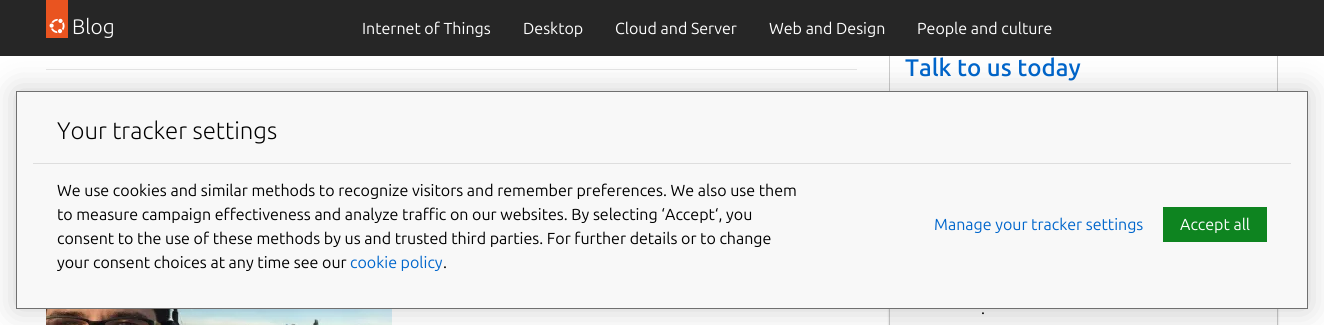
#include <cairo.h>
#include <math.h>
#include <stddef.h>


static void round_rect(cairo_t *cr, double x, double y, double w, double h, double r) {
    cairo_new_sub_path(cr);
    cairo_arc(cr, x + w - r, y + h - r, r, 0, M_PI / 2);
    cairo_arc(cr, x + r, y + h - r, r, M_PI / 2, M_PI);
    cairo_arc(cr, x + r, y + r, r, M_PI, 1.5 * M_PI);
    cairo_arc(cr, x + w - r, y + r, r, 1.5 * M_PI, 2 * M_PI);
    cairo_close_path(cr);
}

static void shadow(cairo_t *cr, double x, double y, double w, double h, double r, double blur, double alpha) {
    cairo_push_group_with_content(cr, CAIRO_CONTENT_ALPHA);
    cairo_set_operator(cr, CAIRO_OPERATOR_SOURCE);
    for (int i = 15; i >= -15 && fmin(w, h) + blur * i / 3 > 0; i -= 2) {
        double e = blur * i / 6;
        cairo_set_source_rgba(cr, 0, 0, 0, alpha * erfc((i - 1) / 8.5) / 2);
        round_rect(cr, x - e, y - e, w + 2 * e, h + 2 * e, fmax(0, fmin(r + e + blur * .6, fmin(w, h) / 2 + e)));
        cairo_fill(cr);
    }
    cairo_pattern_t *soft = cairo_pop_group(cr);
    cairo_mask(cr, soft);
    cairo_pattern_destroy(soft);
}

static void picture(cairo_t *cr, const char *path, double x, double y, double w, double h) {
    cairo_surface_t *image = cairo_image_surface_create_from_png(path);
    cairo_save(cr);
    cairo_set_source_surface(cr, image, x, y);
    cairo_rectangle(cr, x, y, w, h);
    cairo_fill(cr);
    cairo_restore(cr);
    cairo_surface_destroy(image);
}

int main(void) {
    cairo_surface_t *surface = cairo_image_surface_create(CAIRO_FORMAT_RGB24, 1324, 325);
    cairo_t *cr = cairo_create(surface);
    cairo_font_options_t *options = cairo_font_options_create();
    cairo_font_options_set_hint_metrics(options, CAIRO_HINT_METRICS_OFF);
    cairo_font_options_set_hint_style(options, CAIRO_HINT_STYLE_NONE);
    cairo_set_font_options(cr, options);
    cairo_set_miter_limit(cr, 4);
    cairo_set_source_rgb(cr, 1, 1, 1);
    cairo_paint(cr);
    cairo_rectangle(cr, 889.5, 29.5, 388, 143);
    cairo_set_source_rgb(cr, 0.8, 0.8, 0.8);
    cairo_set_line_width(cr, 1);
    cairo_stroke(cr);
    cairo_set_source_rgb(cr, 0.149, 0.149, 0.149);
    cairo_rectangle(cr, 0, 0, 1324, 56);
    cairo_fill(cr);
    cairo_set_source_rgb(cr, 0.914, 0.329, 0.125);
    cairo_rectangle(cr, 46, 0, 22, 38);
    cairo_fill(cr);
    picture(cr, "img1.png", 49, 18, 16, 16);
    cairo_select_font_face(cr, "Ubuntu Light", CAIRO_FONT_SLANT_NORMAL, CAIRO_FONT_WEIGHT_NORMAL);
    cairo_set_font_size(cr, 21);
    cairo_set_source_rgb(cr, 1, 1, 1);
    cairo_move_to(cr, 72, 34);
    cairo_show_text(cr, "Blog");
    cairo_select_font_face(cr, "Ubuntu", CAIRO_FONT_SLANT_NORMAL, CAIRO_FONT_WEIGHT_NORMAL);
    cairo_set_font_size(cr, 16);
    cairo_move_to(cr, 362, 34);
    cairo_show_text(cr, "Internet of Things");
    cairo_move_to(cr, 523, 34);
    cairo_show_text(cr, "Desktop");
    cairo_move_to(cr, 615, 34);
    cairo_show_text(cr, "Cloud and Server");
    cairo_move_to(cr, 769, 34);
    cairo_show_text(cr, "Web and Design");
    cairo_move_to(cr, 917, 34);
    cairo_show_text(cr, "People and culture");
    cairo_set_source_rgb(cr, 0.902, 0.902, 0.902);
    cairo_rectangle(cr, 46, 69, 811, 1);
    cairo_fill(cr);
    picture(cr, "img2.png", 46, 309, 346, 16);
    cairo_select_font_face(cr, "Ubuntu Medium", CAIRO_FONT_SLANT_NORMAL, CAIRO_FONT_WEIGHT_NORMAL);
    cairo_set_font_size(cr, 24);
    cairo_set_source_rgb(cr, 0, 0.4, 0.8);
    cairo_move_to(cr, 905, 76);
    cairo_show_text(cr, "Talk to us today");
    cairo_set_source_rgb(cr, 0.067, 0.067, 0.067);
    shadow(cr, 889, 198, 389, 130, 0, 1, 0.2);
    cairo_set_source_rgb(cr, 0.969, 0.969, 0.969);
    cairo_rectangle(cr, 890, 309, 387, 16);
    cairo_fill(cr);
    cairo_rectangle(cr, 889.5, 197.5, 388, 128);
    cairo_set_source_rgb(cr, 0.776, 0.776, 0.776);
    cairo_stroke(cr);
    cairo_select_font_face(cr, "Ubuntu", CAIRO_FONT_SLANT_NORMAL, CAIRO_FONT_WEIGHT_NORMAL);
    cairo_set_font_size(cr, 16);
    cairo_set_source_rgb(cr, 0, 0, 0);
    cairo_move_to(cr, 981, 314);
    cairo_show_text(cr, ".");
    cairo_set_source_rgb(cr, 0, 0, 0);
    shadow(cr, 16, 91, 1292, 218, 0, 16, 0.2);
    cairo_set_source_rgb(cr, 0.969, 0.969, 0.969);
    cairo_rectangle(cr, 16.5, 91.5, 1291, 217);
    cairo_fill_preserve(cr);
    cairo_set_source_rgb(cr, 0.439, 0.439, 0.439);
    cairo_stroke(cr);
    cairo_select_font_face(cr, "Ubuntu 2 Light", CAIRO_FONT_SLANT_NORMAL, CAIRO_FONT_WEIGHT_NORMAL);
    cairo_set_font_size(cr, 24);
    cairo_set_source_rgb(cr, 0, 0, 0);
    cairo_move_to(cr, 57, 139);
    cairo_show_text(cr, "Your tracker settings");
    cairo_set_source_rgb(cr, 0.871, 0.871, 0.871);
    cairo_rectangle(cr, 33, 163, 1258, 1);
    cairo_fill(cr);
    cairo_select_font_face(cr, "Ubuntu", CAIRO_FONT_SLANT_NORMAL, CAIRO_FONT_WEIGHT_NORMAL);
    cairo_set_font_size(cr, 16);
    cairo_set_source_rgb(cr, 0, 0, 0);
    cairo_move_to(cr, 57, 196);
    cairo_show_text(cr, "We use cookies and similar methods to recognize visitors and remember preferences. We also use them");
    cairo_move_to(cr, 57, 220);
    cairo_show_text(cr, "to measure campaign effectiveness and analyze traffic on our websites. By selecting ‘Accept‘, you");
    cairo_move_to(cr, 57, 244);
    cairo_show_text(cr, "consent to the use of these methods by us and trusted third parties. For further details or to change");
    cairo_move_to(cr, 57, 268);
    cairo_show_text(cr, "your consent choices at any time see our");
    cairo_set_source_rgb(cr, 0, 0.4, 0.8);
    cairo_move_to(cr, 350, 268);
    cairo_show_text(cr, "cookie policy");
    cairo_set_source_rgb(cr, 0, 0, 0);
    cairo_move_to(cr, 443, 268);
    cairo_show_text(cr, ".");
    cairo_set_source_rgb(cr, 0, 0.4, 0.8);
    cairo_move_to(cr, 934, 230);
    cairo_show_text(cr, "Manage your tracker settings");
    cairo_set_source_rgb(cr, 0.055, 0.518, 0.125);
    cairo_rectangle(cr, 1163, 207, 104, 35);
    cairo_fill(cr);
    cairo_set_source_rgb(cr, 1, 1, 1);
    cairo_move_to(cr, 1180, 230);
    cairo_show_text(cr, "Accept all");
    cairo_surface_write_to_png(surface, "page.png");
    cairo_font_options_destroy(options);
    cairo_destroy(cr);
    cairo_surface_destroy(surface);
    return 0;
}
